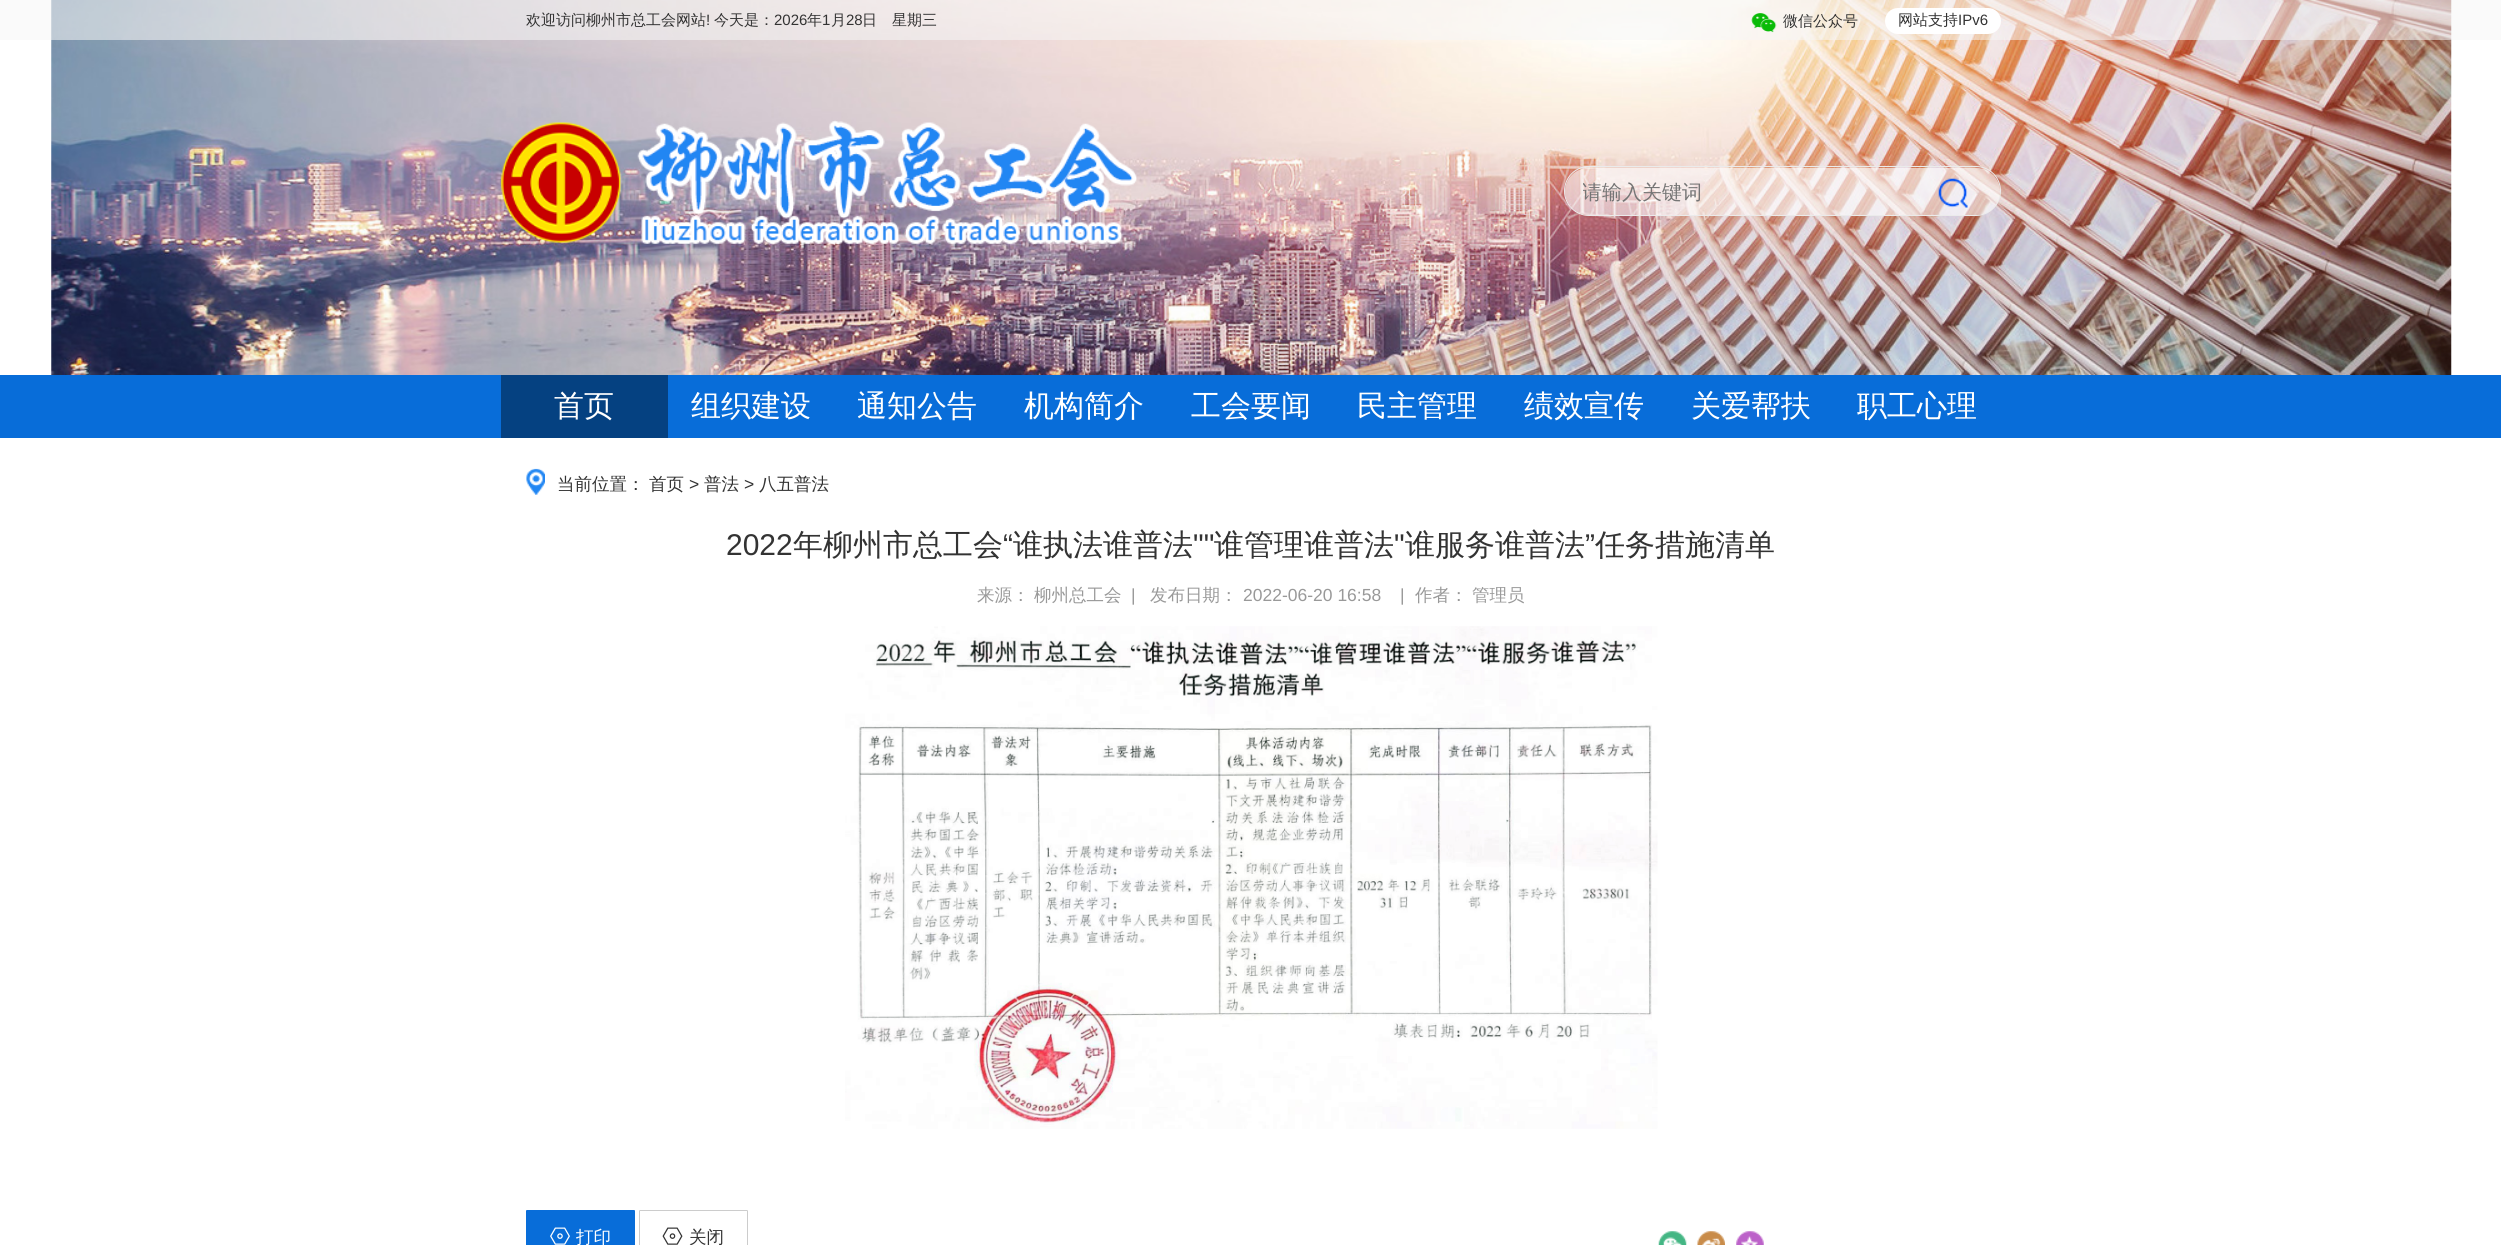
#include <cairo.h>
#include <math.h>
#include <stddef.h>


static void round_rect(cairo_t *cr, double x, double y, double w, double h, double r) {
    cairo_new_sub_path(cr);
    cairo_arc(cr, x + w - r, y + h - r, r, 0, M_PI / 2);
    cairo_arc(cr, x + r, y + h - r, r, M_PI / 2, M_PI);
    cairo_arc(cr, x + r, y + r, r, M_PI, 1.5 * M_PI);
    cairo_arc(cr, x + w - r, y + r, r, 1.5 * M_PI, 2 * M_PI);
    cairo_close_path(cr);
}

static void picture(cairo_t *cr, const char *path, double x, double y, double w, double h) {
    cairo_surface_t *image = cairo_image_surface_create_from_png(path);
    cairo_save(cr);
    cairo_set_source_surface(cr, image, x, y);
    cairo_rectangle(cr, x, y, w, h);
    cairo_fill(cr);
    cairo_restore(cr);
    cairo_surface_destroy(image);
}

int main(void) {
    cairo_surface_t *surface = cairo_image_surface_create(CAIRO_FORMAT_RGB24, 2501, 1245);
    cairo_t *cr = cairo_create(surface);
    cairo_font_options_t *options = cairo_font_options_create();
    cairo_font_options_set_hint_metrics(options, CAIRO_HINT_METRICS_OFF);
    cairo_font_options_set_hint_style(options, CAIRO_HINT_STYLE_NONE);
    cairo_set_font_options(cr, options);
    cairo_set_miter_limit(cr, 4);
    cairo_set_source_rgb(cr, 1, 1, 1);
    cairo_paint(cr);
    picture(cr, "img2.png", 51, 0, 2401, 375);
    cairo_set_source_rgba(cr, 0.961, 0.961, 0.961, 0.55);
    cairo_rectangle(cr, 0, 0, 2501, 40);
    cairo_fill(cr);
    cairo_select_font_face(cr, "WenQuanYi Zen Hei Medium", CAIRO_FONT_SLANT_NORMAL, CAIRO_FONT_WEIGHT_NORMAL);
    cairo_set_font_size(cr, 15);
    cairo_set_source_rgb(cr, 0.2, 0.2, 0.2);
    cairo_move_to(cr, 526, 25);
    cairo_show_text(cr, "欢迎访问柳州市总工会网站");
    cairo_select_font_face(cr, "Liberation Sans", CAIRO_FONT_SLANT_NORMAL, CAIRO_FONT_WEIGHT_NORMAL);
    cairo_move_to(cr, 706, 25);
    cairo_show_text(cr, "!");
    cairo_select_font_face(cr, "WenQuanYi Zen Hei Medium", CAIRO_FONT_SLANT_NORMAL, CAIRO_FONT_WEIGHT_NORMAL);
    cairo_move_to(cr, 714, 25);
    cairo_show_text(cr, "今天是：");
    cairo_select_font_face(cr, "Liberation Sans", CAIRO_FONT_SLANT_NORMAL, CAIRO_FONT_WEIGHT_NORMAL);
    cairo_move_to(cr, 774, 25);
    cairo_show_text(cr, "2026");
    cairo_select_font_face(cr, "WenQuanYi Zen Hei Medium", CAIRO_FONT_SLANT_NORMAL, CAIRO_FONT_WEIGHT_NORMAL);
    cairo_move_to(cr, 807, 25);
    cairo_show_text(cr, "年");
    cairo_select_font_face(cr, "Liberation Sans", CAIRO_FONT_SLANT_NORMAL, CAIRO_FONT_WEIGHT_NORMAL);
    cairo_move_to(cr, 822, 25);
    cairo_show_text(cr, "1");
    cairo_select_font_face(cr, "WenQuanYi Zen Hei Medium", CAIRO_FONT_SLANT_NORMAL, CAIRO_FONT_WEIGHT_NORMAL);
    cairo_move_to(cr, 831, 25);
    cairo_show_text(cr, "月");
    cairo_select_font_face(cr, "Liberation Sans", CAIRO_FONT_SLANT_NORMAL, CAIRO_FONT_WEIGHT_NORMAL);
    cairo_move_to(cr, 846, 25);
    cairo_show_text(cr, "28");
    cairo_select_font_face(cr, "WenQuanYi Zen Hei Medium", CAIRO_FONT_SLANT_NORMAL, CAIRO_FONT_WEIGHT_NORMAL);
    cairo_move_to(cr, 862, 25);
    cairo_show_text(cr, "日　星期三");
    picture(cr, "img1.png", 1751, 13, 26, 20);
    cairo_move_to(cr, 1783, 26);
    cairo_show_text(cr, "微信公众号");
    cairo_set_source_rgb(cr, 1, 1, 1);
    round_rect(cr, 1885, 8, 116, 26, 13);
    cairo_fill(cr);
    cairo_set_source_rgb(cr, 0.2, 0.2, 0.2);
    cairo_move_to(cr, 1898, 25);
    cairo_show_text(cr, "网站支持");
    cairo_select_font_face(cr, "Liberation Sans", CAIRO_FONT_SLANT_NORMAL, CAIRO_FONT_WEIGHT_NORMAL);
    cairo_move_to(cr, 1958, 25);
    cairo_show_text(cr, "IPv6");
    picture(cr, "img3.png", 501, 120, 636, 124);
    round_rect(cr, 1564.5, 166.5, 436, 49, 24.5);
    cairo_set_source_rgb(cr, 0.918, 0.918, 0.918);
    cairo_set_line_width(cr, 1);
    cairo_stroke(cr);
    cairo_set_source_rgba(cr, 1, 1, 1, 0.6);
    round_rect(cr, 1565, 168, 435, 47, 23.5);
    cairo_fill(cr);
    cairo_save(cr);
    cairo_rectangle(cr, 1583, 180, 417, 26);
    cairo_clip(cr);
    cairo_select_font_face(cr, "WenQuanYi Zen Hei Medium", CAIRO_FONT_SLANT_NORMAL, CAIRO_FONT_WEIGHT_NORMAL);
    cairo_set_font_size(cr, 20);
    cairo_set_source_rgb(cr, 0.459, 0.459, 0.459);
    cairo_move_to(cr, 1582, 199);
    cairo_show_text(cr, "请输入关键词");
    cairo_restore(cr);
    picture(cr, "img4.png", 1938, 178, 30, 30);
    cairo_set_source_rgb(cr, 0.035, 0.427, 0.851);
    cairo_rectangle(cr, 0, 375, 2501, 63);
    cairo_fill(cr);
    cairo_set_source_rgb(cr, 0.02, 0.255, 0.506);
    cairo_rectangle(cr, 501, 375, 167, 63);
    cairo_fill(cr);
    cairo_select_font_face(cr, "WenQuanYi Zen Hei Medium", CAIRO_FONT_SLANT_NORMAL, CAIRO_FONT_WEIGHT_NORMAL);
    cairo_set_font_size(cr, 30);
    cairo_set_source_rgb(cr, 1, 1, 1);
    cairo_move_to(cr, 554, 416);
    cairo_show_text(cr, "首页");
    cairo_move_to(cr, 691, 416);
    cairo_show_text(cr, "组织建设");
    cairo_move_to(cr, 857, 416);
    cairo_show_text(cr, "通知公告");
    cairo_move_to(cr, 1024, 416);
    cairo_show_text(cr, "机构简介");
    cairo_move_to(cr, 1191, 416);
    cairo_show_text(cr, "工会要闻");
    cairo_move_to(cr, 1357, 416);
    cairo_show_text(cr, "民主管理");
    cairo_move_to(cr, 1524, 416);
    cairo_show_text(cr, "绩效宣传");
    cairo_move_to(cr, 1691, 416);
    cairo_show_text(cr, "关爱帮扶");
    cairo_move_to(cr, 1857, 416);
    cairo_show_text(cr, "职工心理");
    picture(cr, "img5.png", 526, 468, 19, 27);
    cairo_set_font_size(cr, 17.5);
    cairo_set_source_rgb(cr, 0.2, 0.2, 0.2);
    cairo_move_to(cr, 557, 490);
    cairo_show_text(cr, "当前位置：");
    cairo_move_to(cr, 649, 490);
    cairo_show_text(cr, "首页");
    cairo_select_font_face(cr, "Liberation Sans", CAIRO_FONT_SLANT_NORMAL, CAIRO_FONT_WEIGHT_NORMAL);
    cairo_move_to(cr, 689, 490);
    cairo_show_text(cr, ">");
    cairo_select_font_face(cr, "WenQuanYi Zen Hei Medium", CAIRO_FONT_SLANT_NORMAL, CAIRO_FONT_WEIGHT_NORMAL);
    cairo_move_to(cr, 704, 490);
    cairo_show_text(cr, "普法");
    cairo_select_font_face(cr, "Liberation Sans", CAIRO_FONT_SLANT_NORMAL, CAIRO_FONT_WEIGHT_NORMAL);
    cairo_move_to(cr, 744, 490);
    cairo_show_text(cr, ">");
    cairo_select_font_face(cr, "WenQuanYi Zen Hei Medium", CAIRO_FONT_SLANT_NORMAL, CAIRO_FONT_WEIGHT_NORMAL);
    cairo_move_to(cr, 759, 490);
    cairo_show_text(cr, "八五普法");
    cairo_select_font_face(cr, "Liberation Sans", CAIRO_FONT_SLANT_NORMAL, CAIRO_FONT_WEIGHT_NORMAL);
    cairo_set_font_size(cr, 30);
    cairo_move_to(cr, 726, 555);
    cairo_show_text(cr, "2022");
    cairo_select_font_face(cr, "WenQuanYi Zen Hei Medium", CAIRO_FONT_SLANT_NORMAL, CAIRO_FONT_WEIGHT_NORMAL);
    cairo_move_to(cr, 793, 555);
    cairo_show_text(cr, "年柳州市总工会");
    cairo_select_font_face(cr, "Liberation Sans", CAIRO_FONT_SLANT_NORMAL, CAIRO_FONT_WEIGHT_NORMAL);
    cairo_move_to(cr, 1003, 555);
    cairo_show_text(cr, "“");
    cairo_select_font_face(cr, "WenQuanYi Zen Hei Medium", CAIRO_FONT_SLANT_NORMAL, CAIRO_FONT_WEIGHT_NORMAL);
    cairo_move_to(cr, 1013, 555);
    cairo_show_text(cr, "谁执法谁普法");
    cairo_select_font_face(cr, "Liberation Sans", CAIRO_FONT_SLANT_NORMAL, CAIRO_FONT_WEIGHT_NORMAL);
    cairo_move_to(cr, 1193, 555);
    cairo_show_text(cr, "\"\"");
    cairo_select_font_face(cr, "WenQuanYi Zen Hei Medium", CAIRO_FONT_SLANT_NORMAL, CAIRO_FONT_WEIGHT_NORMAL);
    cairo_move_to(cr, 1214, 555);
    cairo_show_text(cr, "谁管理谁普法");
    cairo_select_font_face(cr, "Liberation Sans", CAIRO_FONT_SLANT_NORMAL, CAIRO_FONT_WEIGHT_NORMAL);
    cairo_move_to(cr, 1394, 555);
    cairo_show_text(cr, "\"");
    cairo_select_font_face(cr, "WenQuanYi Zen Hei Medium", CAIRO_FONT_SLANT_NORMAL, CAIRO_FONT_WEIGHT_NORMAL);
    cairo_move_to(cr, 1405, 555);
    cairo_show_text(cr, "谁服务谁普法");
    cairo_select_font_face(cr, "Liberation Sans", CAIRO_FONT_SLANT_NORMAL, CAIRO_FONT_WEIGHT_NORMAL);
    cairo_move_to(cr, 1585, 555);
    cairo_show_text(cr, "”");
    cairo_select_font_face(cr, "WenQuanYi Zen Hei Medium", CAIRO_FONT_SLANT_NORMAL, CAIRO_FONT_WEIGHT_NORMAL);
    cairo_move_to(cr, 1595, 555);
    cairo_show_text(cr, "任务措施清单");
    cairo_set_font_size(cr, 17.5);
    cairo_set_source_rgb(cr, 0.6, 0.6, 0.6);
    cairo_move_to(cr, 977, 601);
    cairo_show_text(cr, "来源：");
    cairo_move_to(cr, 1034, 601);
    cairo_show_text(cr, "柳州总工会");
    cairo_select_font_face(cr, "Liberation Sans", CAIRO_FONT_SLANT_NORMAL, CAIRO_FONT_WEIGHT_NORMAL);
    cairo_move_to(cr, 1131, 601);
    cairo_show_text(cr, "|");
    cairo_select_font_face(cr, "WenQuanYi Zen Hei Medium", CAIRO_FONT_SLANT_NORMAL, CAIRO_FONT_WEIGHT_NORMAL);
    cairo_move_to(cr, 1150, 601);
    cairo_show_text(cr, "发布日期：");
    cairo_select_font_face(cr, "Liberation Sans", CAIRO_FONT_SLANT_NORMAL, CAIRO_FONT_WEIGHT_NORMAL);
    cairo_move_to(cr, 1243, 601);
    cairo_show_text(cr, "2022-06-20 16:58");
    cairo_move_to(cr, 1400, 601);
    cairo_show_text(cr, "|");
    cairo_select_font_face(cr, "WenQuanYi Zen Hei Medium", CAIRO_FONT_SLANT_NORMAL, CAIRO_FONT_WEIGHT_NORMAL);
    cairo_move_to(cr, 1415, 601);
    cairo_show_text(cr, "作者：");
    cairo_move_to(cr, 1472, 601);
    cairo_show_text(cr, "管理员");
    picture(cr, "img6.png", 845, 626, 813, 503);
    cairo_set_source_rgb(cr, 0.035, 0.427, 0.851);
    round_rect(cr, 526.5, 1210.5, 108, 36, 0.5);
    cairo_fill_preserve(cr);
    cairo_stroke(cr);
    picture(cr, "img7.png", 550, 1227, 20, 18);
    cairo_set_source_rgb(cr, 1, 1, 1);
    cairo_move_to(cr, 576, 1243);
    cairo_show_text(cr, "打印");
    round_rect(cr, 639.5, 1210.5, 108, 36, 0.5);
    cairo_set_source_rgb(cr, 0.8, 0.8, 0.8);
    cairo_stroke(cr);
    picture(cr, "img8.png", 662, 1227, 21, 18);
    cairo_set_source_rgb(cr, 0.2, 0.2, 0.2);
    cairo_move_to(cr, 689, 1243);
    cairo_show_text(cr, "关闭");
    picture(cr, "img9.png", 1658, 1231, 29, 14);
    picture(cr, "img10.png", 1697, 1231, 28, 14);
    picture(cr, "img11.png", 1736, 1231, 28, 14);
    cairo_surface_write_to_png(surface, "page.png");
    cairo_font_options_destroy(options);
    cairo_destroy(cr);
    cairo_surface_destroy(surface);
    return 0;
}
